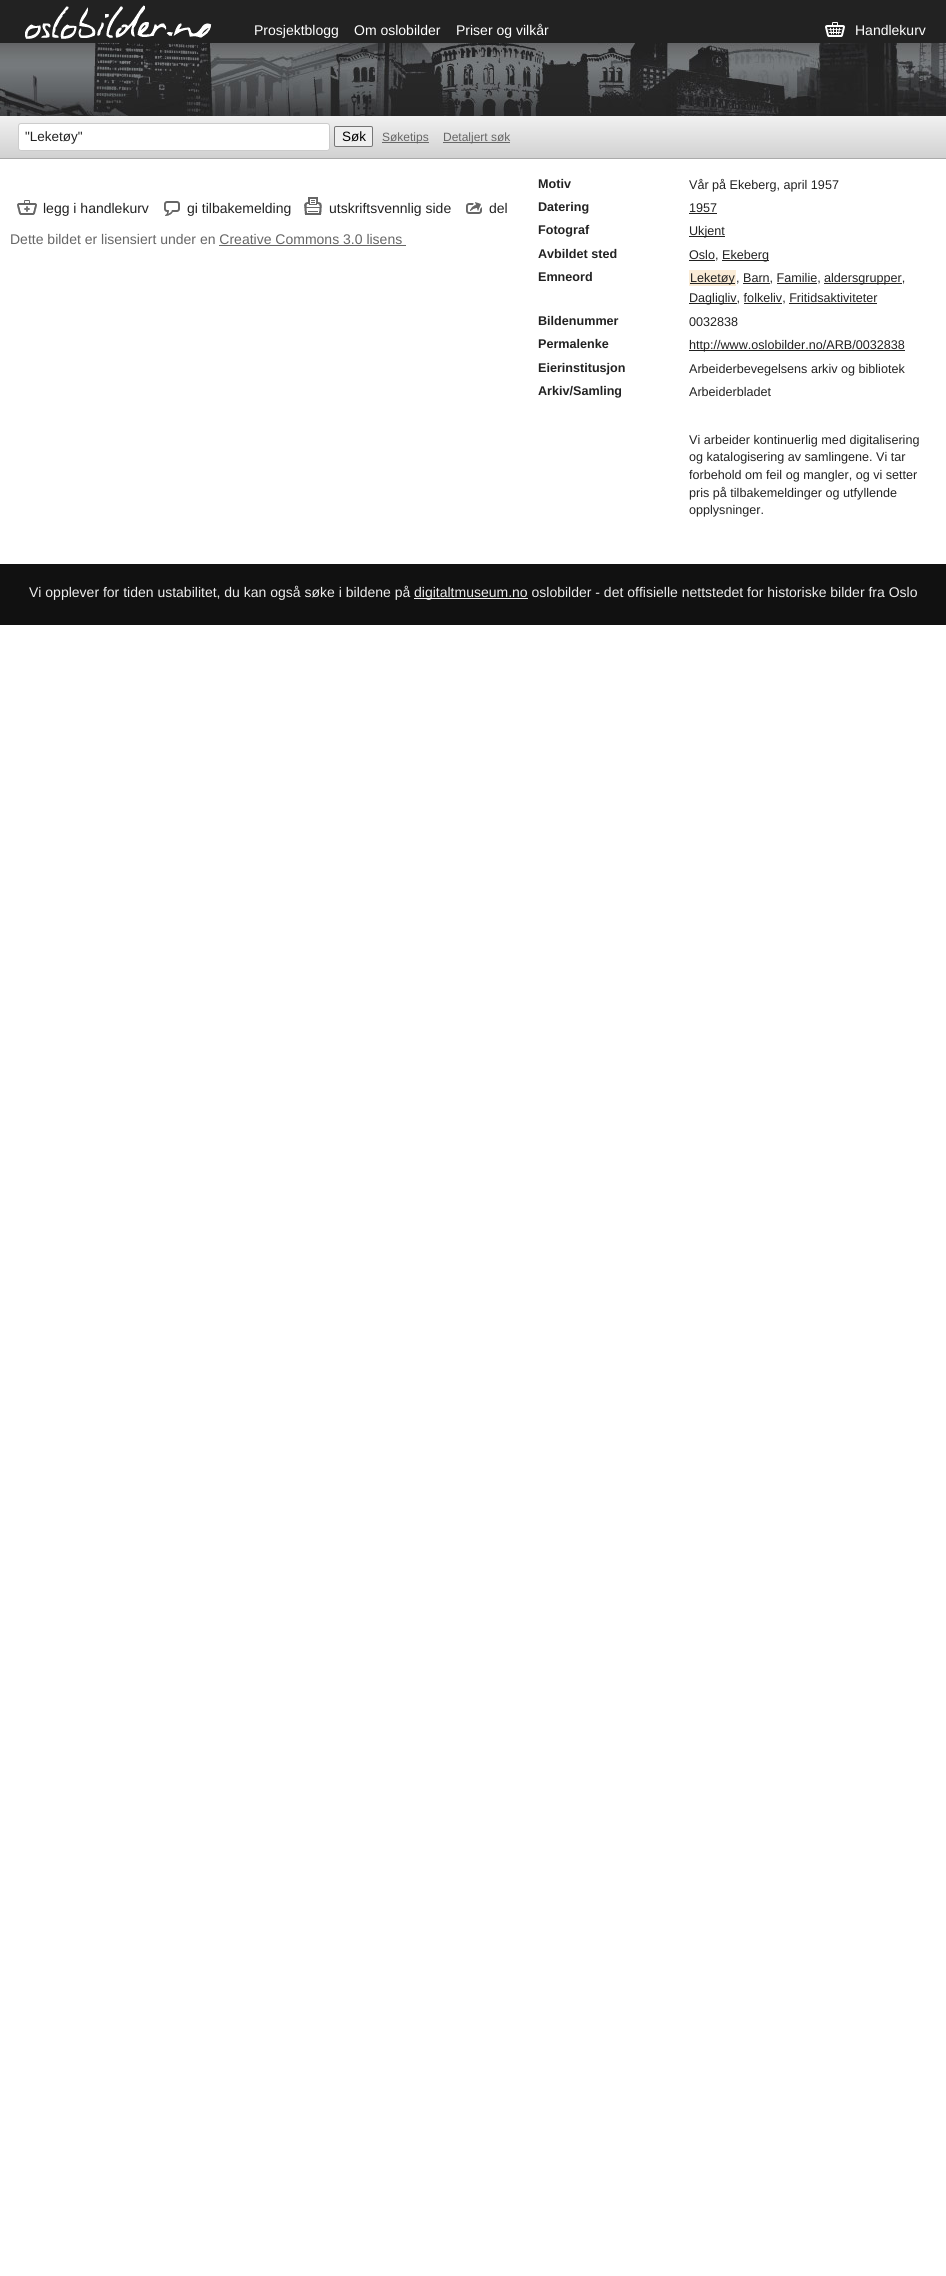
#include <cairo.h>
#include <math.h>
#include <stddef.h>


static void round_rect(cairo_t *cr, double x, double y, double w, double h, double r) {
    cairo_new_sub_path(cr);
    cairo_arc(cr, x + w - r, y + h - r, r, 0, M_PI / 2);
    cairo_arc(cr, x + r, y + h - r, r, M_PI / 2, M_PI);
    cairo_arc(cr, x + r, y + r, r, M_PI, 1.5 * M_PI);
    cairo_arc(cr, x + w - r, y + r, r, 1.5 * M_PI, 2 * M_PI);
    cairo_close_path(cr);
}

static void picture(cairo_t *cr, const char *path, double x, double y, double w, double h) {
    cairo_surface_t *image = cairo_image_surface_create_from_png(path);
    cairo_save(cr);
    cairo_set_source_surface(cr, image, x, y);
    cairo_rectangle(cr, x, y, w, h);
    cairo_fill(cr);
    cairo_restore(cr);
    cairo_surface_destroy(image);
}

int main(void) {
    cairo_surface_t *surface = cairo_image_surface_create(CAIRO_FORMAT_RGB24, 946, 2276);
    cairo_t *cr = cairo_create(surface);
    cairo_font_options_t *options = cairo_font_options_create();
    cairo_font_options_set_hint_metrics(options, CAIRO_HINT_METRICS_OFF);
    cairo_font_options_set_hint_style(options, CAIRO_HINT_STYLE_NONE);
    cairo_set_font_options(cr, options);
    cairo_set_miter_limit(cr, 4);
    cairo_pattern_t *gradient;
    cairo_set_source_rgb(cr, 1, 1, 1);
    cairo_paint(cr);
    cairo_set_source_rgb(cr, 0.133, 0.133, 0.133);
    cairo_rectangle(cr, 0, 0, 946, 43);
    cairo_fill(cr);
    picture(cr, "img1.png", 0, 43, 946, 73);
    picture(cr, "img2.png", 25, 5, 187, 34);
    cairo_select_font_face(cr, "Liberation Sans", CAIRO_FONT_SLANT_NORMAL, CAIRO_FONT_WEIGHT_NORMAL);
    cairo_set_font_size(cr, 14);
    cairo_set_source_rgb(cr, 1, 1, 1);
    cairo_move_to(cr, 254, 35);
    cairo_show_text(cr, "Prosjektblogg");
    cairo_move_to(cr, 354, 35);
    cairo_show_text(cr, "Om oslobilder");
    cairo_move_to(cr, 456, 35);
    cairo_show_text(cr, "Priser og vilkår");
    picture(cr, "img3.png", 825, 22, 20, 15);
    cairo_move_to(cr, 855, 35);
    cairo_show_text(cr, "Handlekurv");
    gradient = cairo_pattern_create_linear(473, 116, 473, 158);
    cairo_pattern_add_color_stop_rgba(gradient, 0, 0.945, 0.945, 0.945, 1);
    cairo_pattern_add_color_stop_rgba(gradient, 1, 0.82, 0.82, 0.82, 1);
    cairo_set_source(cr, gradient);
    cairo_pattern_destroy(gradient);
    cairo_rectangle(cr, 0, 116, 946, 42);
    cairo_fill(cr);
    cairo_set_source_rgb(cr, 0.667, 0.667, 0.667);
    cairo_rectangle(cr, 0, 158, 946, 1);
    cairo_fill(cr);
    cairo_set_source_rgb(cr, 1, 1, 1);
    round_rect(cr, 18.5, 123.5, 311, 27, 2.5);
    cairo_fill_preserve(cr);
    cairo_set_source_rgb(cr, 0.8, 0.8, 0.8);
    cairo_set_line_width(cr, 1);
    cairo_stroke(cr);
    cairo_set_font_size(cr, 13.5);
    cairo_set_source_rgb(cr, 0.133, 0.133, 0.133);
    cairo_move_to(cr, 25, 141);
    cairo_show_text(cr, "\"Leketøy\"");
    cairo_set_source_rgb(cr, 0.937, 0.937, 0.937);
    round_rect(cr, 334.5, 126.5, 38, 20, 1.5);
    cairo_fill_preserve(cr);
    cairo_set_source_rgb(cr, 0.463, 0.463, 0.463);
    cairo_stroke(cr);
    cairo_set_source_rgb(cr, 0, 0, 0);
    cairo_move_to(cr, 342, 141);
    cairo_show_text(cr, "Søk");
    cairo_set_source_rgb(cr, 0.4, 0.4, 0.4);
    cairo_rectangle(cr, 382, 142, 47, 1);
    cairo_fill(cr);
    cairo_set_font_size(cr, 12);
    cairo_move_to(cr, 382, 141);
    cairo_show_text(cr, "Søketips");
    cairo_rectangle(cr, 443, 142, 67, 1);
    cairo_fill(cr);
    cairo_move_to(cr, 443, 141);
    cairo_show_text(cr, "Detaljert søk");
    picture(cr, "img4.png", 17, 200, 20, 15);
    cairo_set_font_size(cr, 14);
    cairo_set_source_rgb(cr, 0.133, 0.133, 0.133);
    cairo_move_to(cr, 43, 213);
    cairo_show_text(cr, "legg i handlekurv");
    picture(cr, "img5.png", 164, 201, 16, 15);
    cairo_move_to(cr, 187, 213);
    cairo_show_text(cr, "gi tilbakemelding");
    picture(cr, "img6.png", 304, 197, 18, 18);
    cairo_move_to(cr, 329, 213);
    cairo_show_text(cr, "utskriftsvennlig side");
    picture(cr, "img7.png", 466, 202, 16, 12);
    cairo_move_to(cr, 489, 213);
    cairo_show_text(cr, "del");
    cairo_set_source_rgb(cr, 0.4, 0.4, 0.4);
    cairo_move_to(cr, 10, 244);
    cairo_show_text(cr, "Dette bildet er lisensiert under en Creative Commons 3.0 lisens");
    cairo_rectangle(cr, 219, 245, 187, 1);
    cairo_fill(cr);
    cairo_select_font_face(cr, "Liberation Sans", CAIRO_FONT_SLANT_NORMAL, CAIRO_FONT_WEIGHT_BOLD);
    cairo_set_font_size(cr, 12.6);
    cairo_set_source_rgb(cr, 0.133, 0.133, 0.133);
    cairo_move_to(cr, 538, 188);
    cairo_show_text(cr, "Motiv");
    cairo_select_font_face(cr, "Liberation Sans", CAIRO_FONT_SLANT_NORMAL, CAIRO_FONT_WEIGHT_NORMAL);
    cairo_move_to(cr, 689, 189);
    cairo_show_text(cr, "Vår på Ekeberg, april 1957");
    cairo_select_font_face(cr, "Liberation Sans", CAIRO_FONT_SLANT_NORMAL, CAIRO_FONT_WEIGHT_BOLD);
    cairo_move_to(cr, 538, 211);
    cairo_show_text(cr, "Datering");
    cairo_select_font_face(cr, "Liberation Sans", CAIRO_FONT_SLANT_NORMAL, CAIRO_FONT_WEIGHT_NORMAL);
    cairo_move_to(cr, 689, 212);
    cairo_show_text(cr, "1957");
    cairo_rectangle(cr, 689, 213, 28, 1);
    cairo_fill(cr);
    cairo_select_font_face(cr, "Liberation Sans", CAIRO_FONT_SLANT_NORMAL, CAIRO_FONT_WEIGHT_BOLD);
    cairo_move_to(cr, 538, 234);
    cairo_show_text(cr, "Fotograf");
    cairo_rectangle(cr, 689, 236, 36, 1);
    cairo_fill(cr);
    cairo_select_font_face(cr, "Liberation Sans", CAIRO_FONT_SLANT_NORMAL, CAIRO_FONT_WEIGHT_NORMAL);
    cairo_move_to(cr, 689, 235);
    cairo_show_text(cr, "Ukjent");
    cairo_select_font_face(cr, "Liberation Sans", CAIRO_FONT_SLANT_NORMAL, CAIRO_FONT_WEIGHT_BOLD);
    cairo_move_to(cr, 538, 258);
    cairo_show_text(cr, "Avbildet sted");
    cairo_rectangle(cr, 689, 260, 26, 1);
    cairo_fill(cr);
    cairo_select_font_face(cr, "Liberation Sans", CAIRO_FONT_SLANT_NORMAL, CAIRO_FONT_WEIGHT_NORMAL);
    cairo_move_to(cr, 689, 259);
    cairo_show_text(cr, "Oslo,");
    cairo_rectangle(cr, 722, 260, 47, 1);
    cairo_fill(cr);
    cairo_move_to(cr, 722, 259);
    cairo_show_text(cr, "Ekeberg");
    cairo_select_font_face(cr, "Liberation Sans", CAIRO_FONT_SLANT_NORMAL, CAIRO_FONT_WEIGHT_BOLD);
    cairo_move_to(cr, 538, 281);
    cairo_show_text(cr, "Emneord");
    cairo_set_source_rgb(cr, 0.98, 0.922, 0.843);
    cairo_rectangle(cr, 689, 270, 47, 16);
    cairo_fill(cr);
    cairo_set_source_rgb(cr, 0.133, 0.133, 0.133);
    cairo_rectangle(cr, 690, 283, 45, 1);
    cairo_fill(cr);
    cairo_select_font_face(cr, "Liberation Sans", CAIRO_FONT_SLANT_NORMAL, CAIRO_FONT_WEIGHT_NORMAL);
    cairo_move_to(cr, 690, 282);
    cairo_show_text(cr, "Leketøy");
    cairo_move_to(cr, 736, 282);
    cairo_show_text(cr, ", Barn, Familie,");
    cairo_rectangle(cr, 824, 283, 78, 1);
    cairo_fill(cr);
    cairo_move_to(cr, 824, 282);
    cairo_show_text(cr, "aldersgrupper,");
    cairo_rectangle(cr, 743, 283, 27, 1);
    cairo_fill(cr);
    cairo_rectangle(cr, 777, 283, 40, 1);
    cairo_fill(cr);
    cairo_rectangle(cr, 689, 303, 48, 1);
    cairo_fill(cr);
    cairo_move_to(cr, 689, 302);
    cairo_show_text(cr, "Dagligliv, folkeliv, Fritidsaktiviteter");
    cairo_rectangle(cr, 744, 303, 38, 1);
    cairo_fill(cr);
    cairo_rectangle(cr, 789, 303, 88, 1);
    cairo_fill(cr);
    cairo_select_font_face(cr, "Liberation Sans", CAIRO_FONT_SLANT_NORMAL, CAIRO_FONT_WEIGHT_BOLD);
    cairo_move_to(cr, 538, 325);
    cairo_show_text(cr, "Bildenummer");
    cairo_select_font_face(cr, "Liberation Sans", CAIRO_FONT_SLANT_NORMAL, CAIRO_FONT_WEIGHT_NORMAL);
    cairo_move_to(cr, 689, 326);
    cairo_show_text(cr, "0032838");
    cairo_select_font_face(cr, "Liberation Sans", CAIRO_FONT_SLANT_NORMAL, CAIRO_FONT_WEIGHT_BOLD);
    cairo_move_to(cr, 538, 348);
    cairo_show_text(cr, "Permalenke");
    cairo_rectangle(cr, 689, 350, 216, 1);
    cairo_fill(cr);
    cairo_select_font_face(cr, "Liberation Sans", CAIRO_FONT_SLANT_NORMAL, CAIRO_FONT_WEIGHT_NORMAL);
    cairo_move_to(cr, 689, 349);
    cairo_show_text(cr, "http://www.oslobilder.no/ARB/0032838");
    cairo_select_font_face(cr, "Liberation Sans", CAIRO_FONT_SLANT_NORMAL, CAIRO_FONT_WEIGHT_BOLD);
    cairo_move_to(cr, 538, 372);
    cairo_show_text(cr, "Eierinstitusjon");
    cairo_select_font_face(cr, "Liberation Sans", CAIRO_FONT_SLANT_NORMAL, CAIRO_FONT_WEIGHT_NORMAL);
    cairo_move_to(cr, 689, 373);
    cairo_show_text(cr, "Arbeiderbevegelsens arkiv og bibliotek");
    cairo_select_font_face(cr, "Liberation Sans", CAIRO_FONT_SLANT_NORMAL, CAIRO_FONT_WEIGHT_BOLD);
    cairo_move_to(cr, 538, 395);
    cairo_show_text(cr, "Arkiv/Samling");
    cairo_select_font_face(cr, "Liberation Sans", CAIRO_FONT_SLANT_NORMAL, CAIRO_FONT_WEIGHT_NORMAL);
    cairo_move_to(cr, 689, 396);
    cairo_show_text(cr, "Arbeiderbladet");
    cairo_move_to(cr, 689, 444);
    cairo_show_text(cr, "Vi arbeider kontinuerlig med digitalisering");
    cairo_move_to(cr, 689, 461);
    cairo_show_text(cr, "og katalogisering av samlingene. Vi tar");
    cairo_move_to(cr, 689, 479);
    cairo_show_text(cr, "forbehold om feil og mangler, og vi setter");
    cairo_move_to(cr, 689, 497);
    cairo_show_text(cr, "pris på tilbakemeldinger og utfyllende");
    cairo_move_to(cr, 689, 514);
    cairo_show_text(cr, "opplysninger.");
    cairo_set_source_rgb(cr, 0.067, 0.067, 0.067);
    cairo_rectangle(cr, 0, 564, 946, 61);
    cairo_fill(cr);
    cairo_set_font_size(cr, 14);
    cairo_set_source_rgb(cr, 0.933, 0.933, 0.933);
    cairo_move_to(cr, 29, 597);
    cairo_show_text(cr, "Vi opplever for tiden ustabilitet, du kan også søke i bildene på");
    cairo_rectangle(cr, 414, 598, 114, 1);
    cairo_fill(cr);
    cairo_move_to(cr, 414, 597);
    cairo_show_text(cr, "digitaltmuseum.no oslobilder - det offisielle nettstedet for historiske bilder fra Oslo");
    cairo_surface_write_to_png(surface, "page.png");
    cairo_font_options_destroy(options);
    cairo_destroy(cr);
    cairo_surface_destroy(surface);
    return 0;
}
